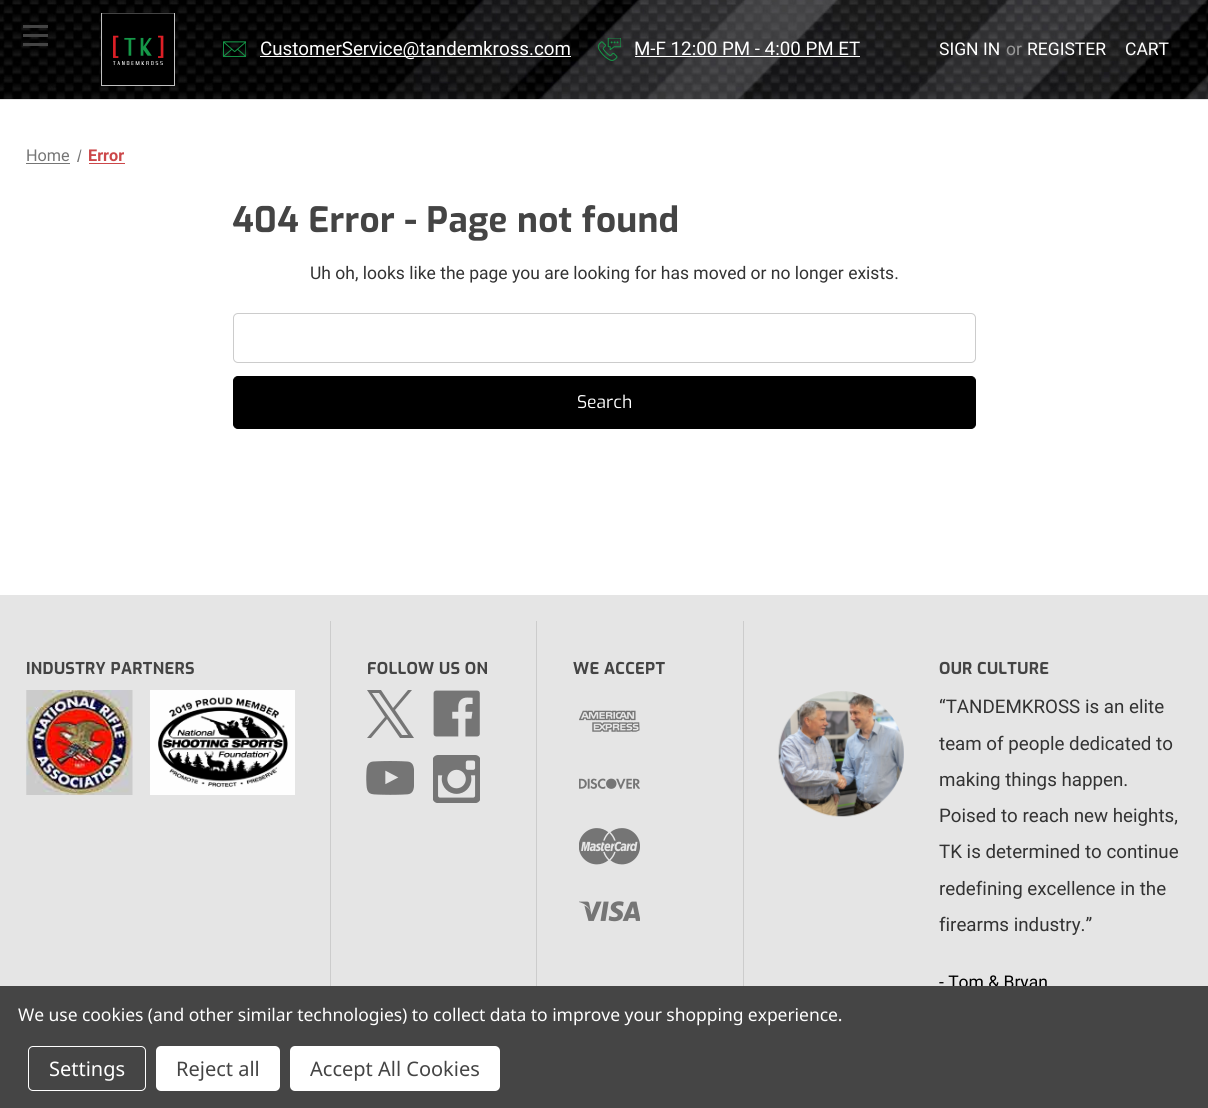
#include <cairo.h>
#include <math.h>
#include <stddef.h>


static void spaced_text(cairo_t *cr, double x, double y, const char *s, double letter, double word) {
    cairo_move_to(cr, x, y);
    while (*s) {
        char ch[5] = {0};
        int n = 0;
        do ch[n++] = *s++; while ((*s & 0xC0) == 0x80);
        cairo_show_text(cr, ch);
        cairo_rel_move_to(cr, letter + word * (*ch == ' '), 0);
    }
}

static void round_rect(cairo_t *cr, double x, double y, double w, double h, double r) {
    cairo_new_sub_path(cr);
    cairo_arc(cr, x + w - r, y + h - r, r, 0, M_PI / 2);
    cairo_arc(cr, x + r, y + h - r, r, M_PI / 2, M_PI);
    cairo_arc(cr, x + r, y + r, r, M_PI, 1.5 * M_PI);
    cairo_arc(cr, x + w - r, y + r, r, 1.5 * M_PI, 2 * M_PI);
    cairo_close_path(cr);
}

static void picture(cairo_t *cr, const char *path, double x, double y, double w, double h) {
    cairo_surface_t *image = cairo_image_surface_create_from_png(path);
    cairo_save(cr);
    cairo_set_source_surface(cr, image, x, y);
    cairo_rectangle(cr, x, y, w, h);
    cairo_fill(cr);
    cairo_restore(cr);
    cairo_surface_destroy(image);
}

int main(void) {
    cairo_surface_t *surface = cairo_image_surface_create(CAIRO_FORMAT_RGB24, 1208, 1108);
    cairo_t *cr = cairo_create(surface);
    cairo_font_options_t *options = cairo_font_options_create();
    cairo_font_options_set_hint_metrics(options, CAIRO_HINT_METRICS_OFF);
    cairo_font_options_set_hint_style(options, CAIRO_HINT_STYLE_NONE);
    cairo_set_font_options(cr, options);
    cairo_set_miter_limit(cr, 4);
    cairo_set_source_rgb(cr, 1, 1, 1);
    cairo_paint(cr);
    picture(cr, "img1.png", 0, 0, 1208, 99);
    cairo_set_source_rgb(cr, 0.898, 0.898, 0.898);
    cairo_rectangle(cr, 0, 99, 1208, 1);
    cairo_fill(cr);
    cairo_set_source_rgb(cr, 0.267, 0.267, 0.267);
    cairo_rectangle(cr, 23, 34, 25, 3);
    cairo_fill(cr);
    cairo_rectangle(cr, 23, 25, 25, 3);
    cairo_fill(cr);
    cairo_rectangle(cr, 23, 43, 25, 3);
    cairo_fill(cr);
    picture(cr, "img2.png", 101, 13, 74, 73);
    picture(cr, "img3.png", 223, 41, 23, 16);
    cairo_set_source_rgb(cr, 1, 1, 1);
    cairo_rectangle(cr, 260, 56, 311, 1);
    cairo_fill(cr);
    cairo_select_font_face(cr, "Roboto", CAIRO_FONT_SLANT_NORMAL, CAIRO_FONT_WEIGHT_NORMAL);
    cairo_set_font_size(cr, 18.75);
    cairo_move_to(cr, 260, 55);
    cairo_show_text(cr, "CustomerService@tandemkross.com");
    picture(cr, "img4.png", 598, 38, 23, 23);
    cairo_move_to(cr, 634, 55);
    cairo_show_text(cr, "M-F 12:00 PM - 4:00 PM ET");
    cairo_rectangle(cr, 635, 56, 225, 1);
    cairo_fill(cr);
    cairo_set_font_size(cr, 17.5);
    cairo_move_to(cr, 939, 55);
    cairo_show_text(cr, "SIGN IN");
    cairo_set_source_rgb(cr, 0.6, 0.6, 0.6);
    cairo_move_to(cr, 1006, 55);
    cairo_show_text(cr, "or");
    cairo_set_source_rgb(cr, 1, 1, 1);
    cairo_move_to(cr, 1027, 55);
    cairo_show_text(cr, "REGISTER");
    cairo_move_to(cr, 1125, 55);
    cairo_show_text(cr, "CART");
    cairo_set_font_size(cr, 16.25);
    cairo_set_source_rgb(cr, 0.459, 0.459, 0.459);
    cairo_move_to(cr, 26, 161);
    cairo_show_text(cr, "Home");
    cairo_rectangle(cr, 26, 163, 44, 1);
    cairo_fill(cr);
    cairo_new_path(cr);
    cairo_move_to(cr, 80.5, 149.5);
    cairo_line_to(cr, 81.5, 149.5);
    cairo_line_to(cr, 78.5, 162);
    cairo_line_to(cr, 77, 162);
    cairo_close_path(cr);
    cairo_fill(cr);
    cairo_select_font_face(cr, "Roboto", CAIRO_FONT_SLANT_NORMAL, CAIRO_FONT_WEIGHT_BOLD);
    cairo_set_source_rgb(cr, 0.8, 0.278, 0.286);
    cairo_move_to(cr, 88, 161);
    cairo_show_text(cr, "Error");
    cairo_rectangle(cr, 89, 163, 36, 1);
    cairo_fill(cr);
    cairo_select_font_face(cr, "Exo", CAIRO_FONT_SLANT_NORMAL, CAIRO_FONT_WEIGHT_BOLD);
    cairo_set_font_size(cr, 35);
    cairo_set_source_rgb(cr, 0.267, 0.267, 0.267);
    spaced_text(cr, 232, 232, "404 Error - Page not found", 0.3, 0);
    cairo_select_font_face(cr, "Roboto", CAIRO_FONT_SLANT_NORMAL, CAIRO_FONT_WEIGHT_NORMAL);
    cairo_set_font_size(cr, 17.5);
    cairo_set_source_rgb(cr, 0.2, 0.2, 0.2);
    cairo_move_to(cr, 310, 279);
    cairo_show_text(cr, "Uh oh, looks like the page you are looking for has moved or no longer exists.");
    round_rect(cr, 233.5, 313.5, 742, 49, 4.5);
    cairo_set_source_rgb(cr, 0.8, 0.8, 0.8);
    cairo_set_line_width(cr, 1);
    cairo_stroke(cr);
    cairo_set_source_rgb(cr, 0, 0, 0);
    round_rect(cr, 233.5, 376.5, 742, 52, 4.5);
    cairo_fill_preserve(cr);
    cairo_stroke(cr);
    cairo_select_font_face(cr, "Exo", CAIRO_FONT_SLANT_NORMAL, CAIRO_FONT_WEIGHT_NORMAL);
    cairo_set_source_rgb(cr, 1, 1, 1);
    cairo_move_to(cr, 577, 408);
    cairo_show_text(cr, "Search");
    cairo_set_source_rgb(cr, 0.898, 0.898, 0.898);
    cairo_rectangle(cr, 0, 595, 1208, 391);
    cairo_fill(cr);
    cairo_select_font_face(cr, "Exo", CAIRO_FONT_SLANT_NORMAL, CAIRO_FONT_WEIGHT_BOLD);
    cairo_set_font_size(cr, 16.25);
    cairo_set_source_rgb(cr, 0.267, 0.267, 0.267);
    spaced_text(cr, 26, 674, "INDUSTRY PARTNERS", 0.3, 0);
    picture(cr, "img5.png", 26, 690, 107, 105);
    picture(cr, "img6.png", 150, 690, 145, 105);
    cairo_set_source_rgb(cr, 0.8, 0.8, 0.8);
    cairo_rectangle(cr, 330, 621, 1, 365);
    cairo_fill(cr);
    cairo_set_source_rgb(cr, 0.267, 0.267, 0.267);
    spaced_text(cr, 367, 674, "FOLLOW US ON", 0.3, 0);
    cairo_set_source_rgb(cr, 0.459, 0.459, 0.459);
    cairo_new_path(cr);
    cairo_move_to(cr, 395, 710);
    cairo_line_to(cr, 412, 690);
    cairo_line_to(cr, 408, 690);
    cairo_line_to(cr, 393, 708);
    cairo_line_to(cr, 381, 690);
    cairo_line_to(cr, 367, 690);
    cairo_line_to(cr, 385, 717);
    cairo_line_to(cr, 367, 738);
    cairo_line_to(cr, 371, 738);
    cairo_line_to(cr, 387, 719);
    cairo_line_to(cr, 400, 738);
    cairo_line_to(cr, 414, 738);
    cairo_close_path(cr);
    cairo_move_to(cr, 389, 717);
    cairo_line_to(cr, 372, 693);
    cairo_line_to(cr, 379, 693);
    cairo_line_to(cr, 408, 735);
    cairo_line_to(cr, 402, 735);
    cairo_close_path(cr);
    cairo_fill(cr);
    picture(cr, "img7.png", 433, 690, 47, 47);
    picture(cr, "img8.png", 366, 761, 48, 34);
    picture(cr, "img9.png", 433, 755, 47, 48);
    cairo_set_source_rgb(cr, 0.8, 0.8, 0.8);
    cairo_rectangle(cr, 536, 621, 1, 365);
    cairo_fill(cr);
    cairo_set_source_rgb(cr, 0.267, 0.267, 0.267);
    spaced_text(cr, 573, 674, "WE ACCEPT", 0.3, 0);
    picture(cr, "img10.png", 579, 710, 61, 22);
    picture(cr, "img11.png", 579, 778, 61, 11);
    picture(cr, "img12.png", 579, 828, 61, 37);
    picture(cr, "img13.png", 579, 901, 61, 21);
    cairo_set_source_rgb(cr, 0.8, 0.8, 0.8);
    cairo_rectangle(cr, 743, 621, 1, 365);
    cairo_fill(cr);
    picture(cr, "img14.png", 778, 691, 126, 126);
    cairo_set_source_rgb(cr, 0.267, 0.267, 0.267);
    spaced_text(cr, 939, 674, "OUR CULTURE", 0.3, 0);
    cairo_select_font_face(cr, "Roboto", CAIRO_FONT_SLANT_NORMAL, CAIRO_FONT_WEIGHT_NORMAL);
    cairo_set_font_size(cr, 18.75);
    cairo_set_source_rgb(cr, 0.2, 0.2, 0.2);
    cairo_move_to(cr, 939, 713);
    cairo_show_text(cr, "“TANDEMKROSS is an elite");
    cairo_move_to(cr, 939, 750);
    cairo_show_text(cr, "team of people dedicated to");
    cairo_move_to(cr, 939, 786);
    cairo_show_text(cr, "making things happen.");
    cairo_move_to(cr, 939, 822);
    cairo_show_text(cr, "Poised to reach new heights,");
    cairo_move_to(cr, 939, 858);
    cairo_show_text(cr, "TK is determined to continue");
    cairo_move_to(cr, 939, 895);
    cairo_show_text(cr, "redefining excellence in the");
    cairo_move_to(cr, 939, 931);
    cairo_show_text(cr, "firearms industry.”");
    cairo_set_font_size(cr, 17.5);
    cairo_set_source_rgb(cr, 0, 0, 0);
    cairo_move_to(cr, 939, 988);
    cairo_show_text(cr, "- Tom & Bryan");
    cairo_set_source_rgb(cr, 0.271, 0.271, 0.271);
    cairo_rectangle(cr, 0, 986, 1208, 122);
    cairo_fill(cr);
    cairo_select_font_face(cr, "Noto Sans", CAIRO_FONT_SLANT_NORMAL, CAIRO_FONT_WEIGHT_NORMAL);
    cairo_set_source_rgb(cr, 1, 1, 1);
    spaced_text(cr, 18, 1021, "We use cookies (and other similar technologies) to collect data to improve your shopping experience.", -0.05, 0);
    round_rect(cr, 28.5, 1046.5, 117, 44, 4.5);
    cairo_stroke(cr);
    cairo_set_font_size(cr, 20);
    cairo_move_to(cr, 49, 1076);
    cairo_show_text(cr, "Settings");
    round_rect(cr, 156, 1046, 124, 45, 5);
    cairo_fill(cr);
    cairo_set_source_rgb(cr, 0.267, 0.267, 0.267);
    cairo_move_to(cr, 176, 1076);
    cairo_show_text(cr, "Reject all");
    cairo_set_source_rgb(cr, 1, 1, 1);
    round_rect(cr, 290, 1046, 210, 45, 5);
    cairo_fill(cr);
    cairo_set_source_rgb(cr, 0.267, 0.267, 0.267);
    cairo_move_to(cr, 310, 1076);
    cairo_show_text(cr, "Accept All Cookies");
    cairo_surface_write_to_png(surface, "page.png");
    cairo_font_options_destroy(options);
    cairo_destroy(cr);
    cairo_surface_destroy(surface);
    return 0;
}
